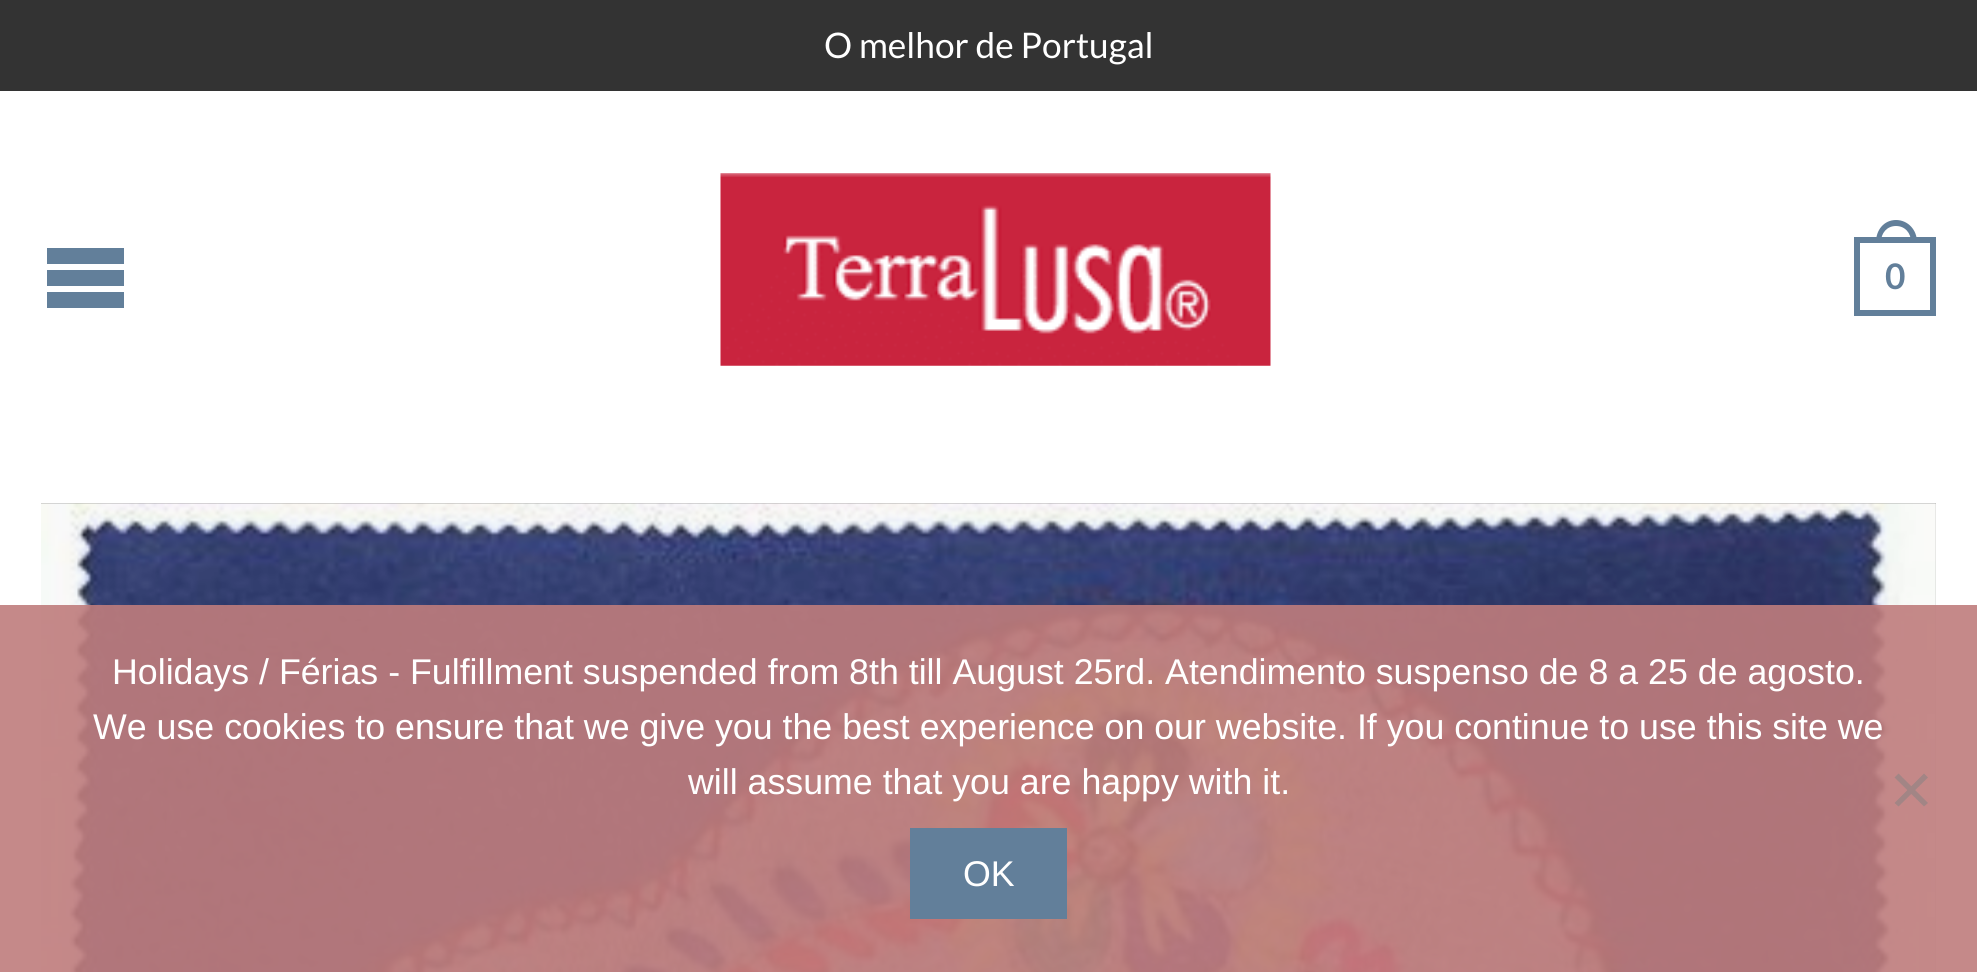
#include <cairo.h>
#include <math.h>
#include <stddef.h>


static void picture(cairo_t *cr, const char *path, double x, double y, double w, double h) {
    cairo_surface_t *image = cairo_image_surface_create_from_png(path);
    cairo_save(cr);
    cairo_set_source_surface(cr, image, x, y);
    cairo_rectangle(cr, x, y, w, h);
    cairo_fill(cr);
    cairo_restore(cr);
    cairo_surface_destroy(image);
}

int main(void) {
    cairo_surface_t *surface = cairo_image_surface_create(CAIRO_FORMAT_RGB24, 1977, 972);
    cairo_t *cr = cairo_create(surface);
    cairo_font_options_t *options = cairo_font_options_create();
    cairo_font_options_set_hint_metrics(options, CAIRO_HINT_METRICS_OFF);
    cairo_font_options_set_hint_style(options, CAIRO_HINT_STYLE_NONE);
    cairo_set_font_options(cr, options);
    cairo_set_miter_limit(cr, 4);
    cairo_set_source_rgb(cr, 1, 1, 1);
    cairo_paint(cr);
    cairo_set_source_rgb(cr, 0.2, 0.2, 0.2);
    cairo_rectangle(cr, 0, 0, 1977, 91);
    cairo_fill(cr);
    cairo_select_font_face(cr, "Lato", CAIRO_FONT_SLANT_NORMAL, CAIRO_FONT_WEIGHT_NORMAL);
    cairo_set_font_size(cr, 35.25);
    cairo_set_source_rgb(cr, 1, 1, 1);
    cairo_move_to(cr, 824, 58);
    cairo_show_text(cr, "O melhor de Portugal");
    cairo_set_source_rgb(cr, 0.384, 0.498, 0.604);
    cairo_new_path(cr);
    cairo_move_to(cr, 47, 248);
    cairo_line_to(cr, 124, 248);
    cairo_line_to(cr, 124, 264);
    cairo_line_to(cr, 47, 264);
    cairo_close_path(cr);
    cairo_move_to(cr, 47, 270);
    cairo_line_to(cr, 124, 270);
    cairo_line_to(cr, 124, 286);
    cairo_line_to(cr, 47, 286);
    cairo_close_path(cr);
    cairo_move_to(cr, 47, 292);
    cairo_line_to(cr, 124, 292);
    cairo_line_to(cr, 124, 308);
    cairo_line_to(cr, 47, 308);
    cairo_close_path(cr);
    cairo_fill(cr);
    picture(cr, "img1.png", 720, 173, 551, 193);
    cairo_set_fill_rule(cr, CAIRO_FILL_RULE_EVEN_ODD);
    cairo_new_path(cr);
    cairo_move_to(cr, 1896, 220);
    cairo_curve_to(cr, 1908, 220, 1917, 230, 1917, 242);
    cairo_line_to(cr, 1876, 242);
    cairo_curve_to(cr, 1876, 230, 1884, 220, 1896, 220);
    cairo_close_path(cr);
    cairo_move_to(cr, 1896, 226);
    cairo_curve_to(cr, 1905, 226, 1911, 233, 1911, 242);
    cairo_line_to(cr, 1881, 242);
    cairo_curve_to(cr, 1881, 233, 1887, 226, 1896, 226);
    cairo_close_path(cr);
    cairo_fill(cr);
    cairo_rectangle(cr, 1857, 240, 76, 73);
    cairo_set_line_width(cr, 6);
    cairo_stroke(cr);
    cairo_select_font_face(cr, "Lato", CAIRO_FONT_SLANT_NORMAL, CAIRO_FONT_WEIGHT_BOLD);
    cairo_move_to(cr, 1885, 289);
    cairo_show_text(cr, "0");
    cairo_set_source_rgb(cr, 0.6, 0.6, 0.6);
    cairo_rectangle(cr, 41, 503, 1895, 469);
    cairo_fill(cr);
    picture(cr, "img2.png", 41, 503, 1895, 469);
    cairo_set_source_rgba(cr, 0.749, 0.49, 0.49, 0.9);
    cairo_rectangle(cr, 0, 605, 1977, 367);
    cairo_fill(cr);
    cairo_select_font_face(cr, "Liberation Sans", CAIRO_FONT_SLANT_NORMAL, CAIRO_FONT_WEIGHT_NORMAL);
    cairo_set_font_size(cr, 35.75);
    cairo_set_source_rgb(cr, 1, 1, 1);
    cairo_move_to(cr, 112, 684);
    cairo_show_text(cr, "Holidays / Férias - Fulfillment suspended from 8th till August 25rd. Atendimento suspenso de 8 a 25 de agosto.");
    cairo_move_to(cr, 93, 739);
    cairo_show_text(cr, "We use cookies to ensure that we give you the best experience on our website. If you continue to use this site we");
    cairo_move_to(cr, 688, 794);
    cairo_show_text(cr, "will assume that you are happy with it.");
    cairo_set_source_rgb(cr, 0.635, 0.522, 0.522);
    cairo_set_fill_rule(cr, CAIRO_FILL_RULE_WINDING);
    cairo_new_path(cr);
    cairo_move_to(cr, 1924, 773.5);
    cairo_line_to(cr, 1928, 777.5);
    cairo_line_to(cr, 1898.5, 806.5);
    cairo_line_to(cr, 1894.5, 803);
    cairo_close_path(cr);
    cairo_fill(cr);
    cairo_new_path(cr);
    cairo_move_to(cr, 1894.5, 777.5);
    cairo_line_to(cr, 1898.5, 773.5);
    cairo_line_to(cr, 1928, 803);
    cairo_line_to(cr, 1924, 806.5);
    cairo_close_path(cr);
    cairo_fill(cr);
    cairo_set_source_rgb(cr, 0.384, 0.498, 0.604);
    cairo_rectangle(cr, 910, 828, 157, 91);
    cairo_fill(cr);
    cairo_set_source_rgb(cr, 1, 1, 1);
    cairo_move_to(cr, 963, 886);
    cairo_show_text(cr, "OK");
    cairo_surface_write_to_png(surface, "page.png");
    cairo_font_options_destroy(options);
    cairo_destroy(cr);
    cairo_surface_destroy(surface);
    return 0;
}
